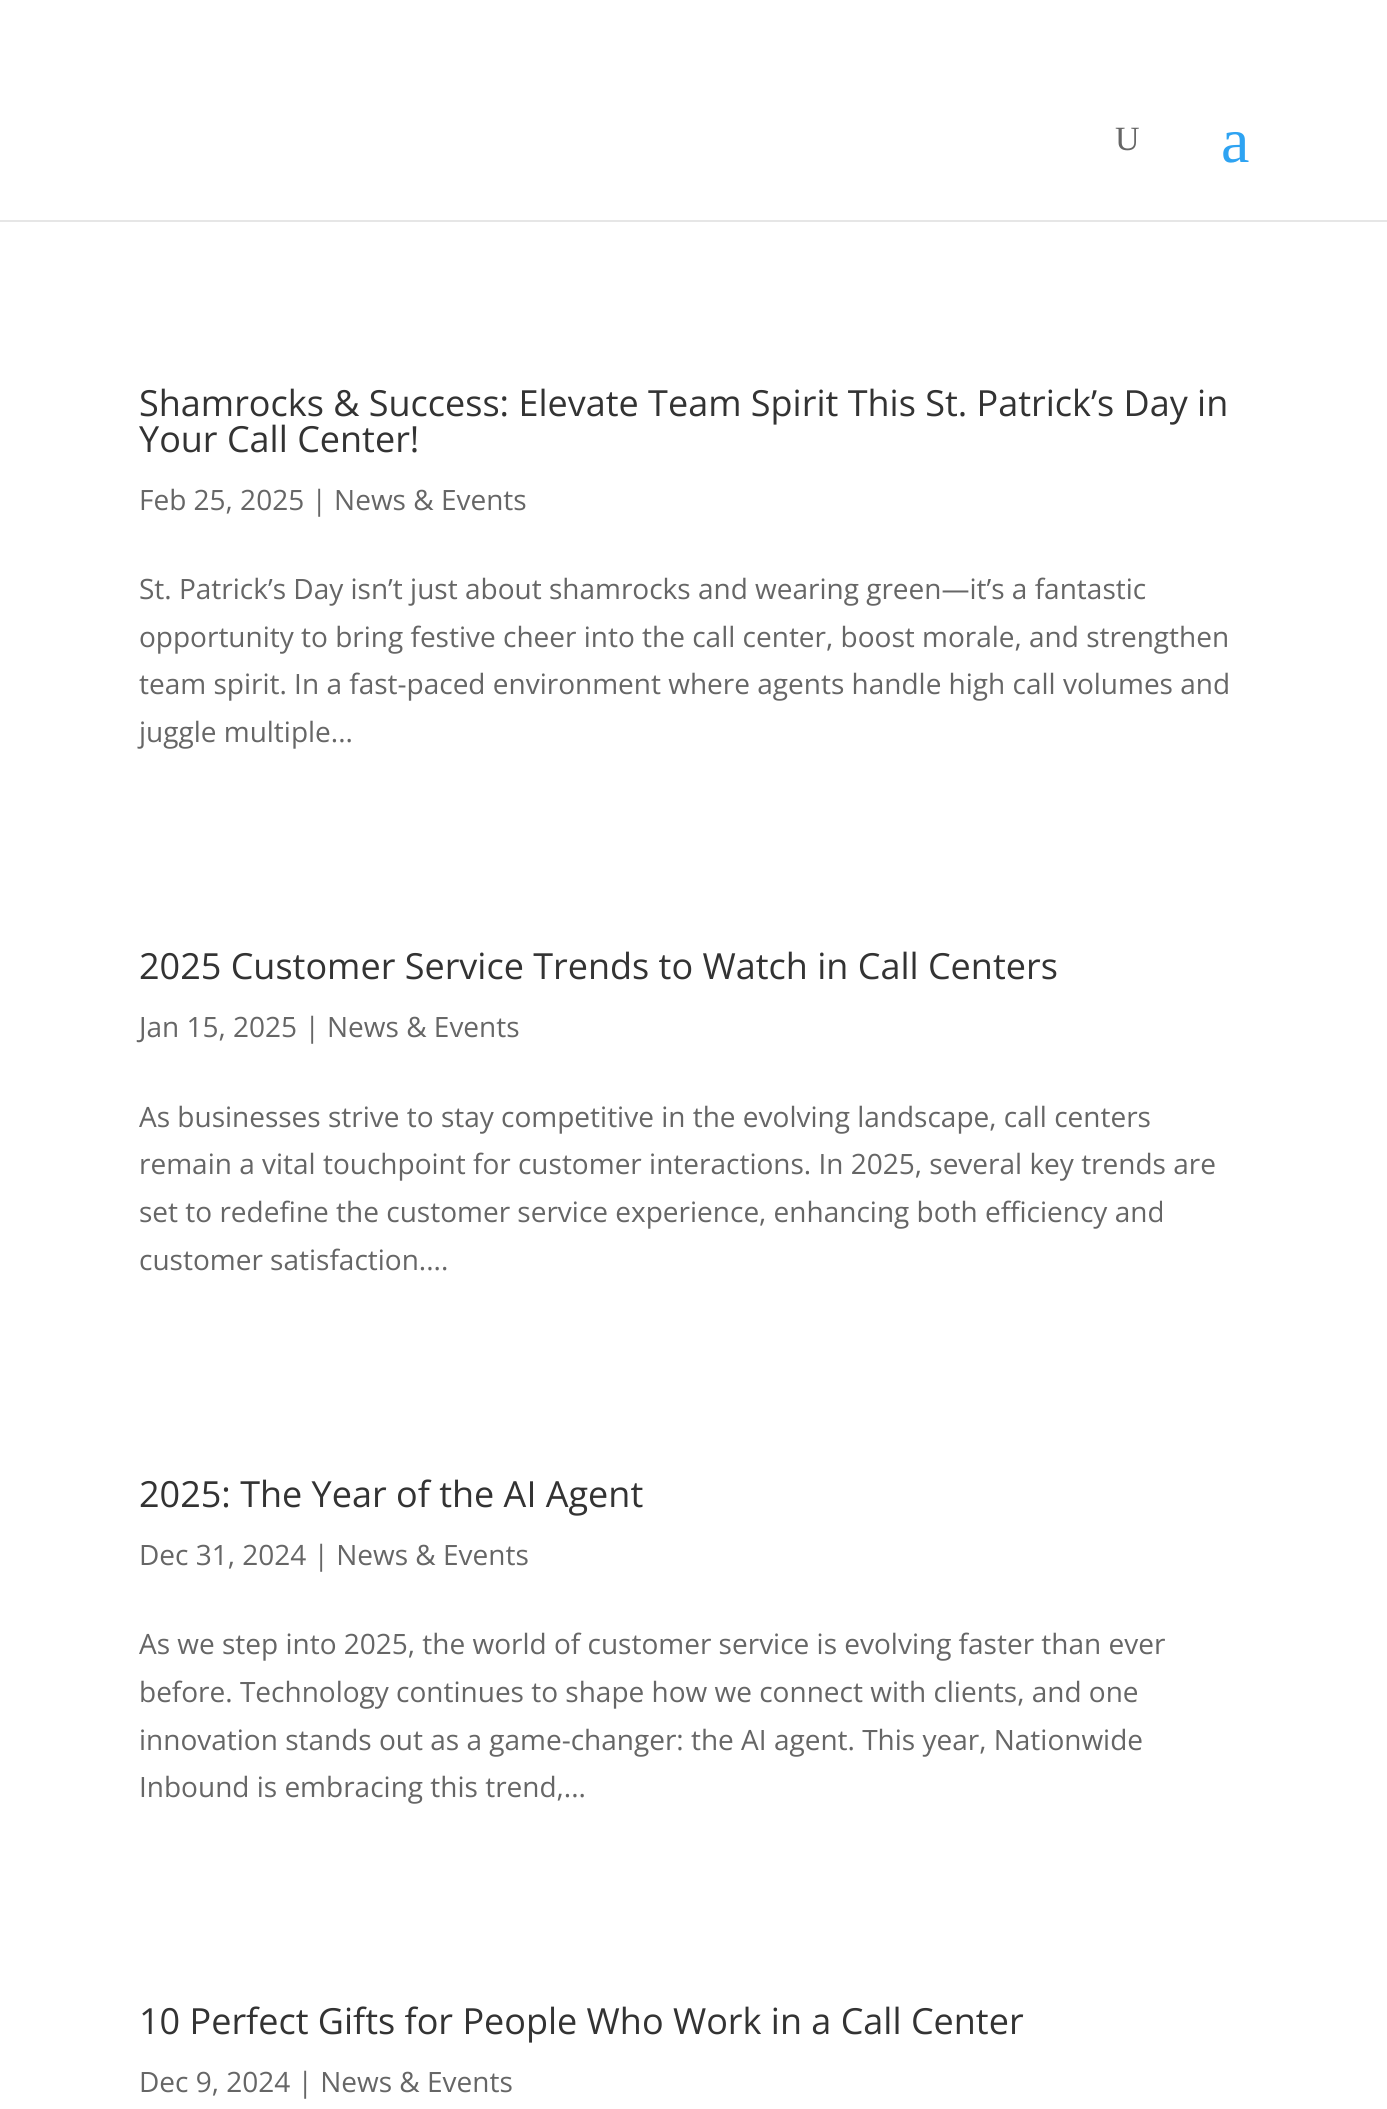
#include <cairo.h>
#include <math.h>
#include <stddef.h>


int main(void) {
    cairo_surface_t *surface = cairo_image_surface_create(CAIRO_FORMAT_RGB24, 1387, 2109);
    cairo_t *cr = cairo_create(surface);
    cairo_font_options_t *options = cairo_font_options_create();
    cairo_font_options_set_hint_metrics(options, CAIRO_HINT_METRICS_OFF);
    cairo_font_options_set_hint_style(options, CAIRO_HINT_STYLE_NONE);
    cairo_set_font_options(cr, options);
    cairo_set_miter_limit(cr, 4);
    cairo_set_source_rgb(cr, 1, 1, 1);
    cairo_paint(cr);
    cairo_set_source_rgb(cr, 0.902, 0.902, 0.902);
    cairo_rectangle(cr, 0, 220, 1387, 2);
    cairo_fill(cr);
    cairo_select_font_face(cr, "Liberation Serif", CAIRO_FONT_SLANT_NORMAL, CAIRO_FONT_WEIGHT_NORMAL);
    cairo_set_font_size(cr, 34);
    cairo_set_source_rgb(cr, 0.4, 0.4, 0.4);
    cairo_move_to(cr, 1115, 150);
    cairo_show_text(cr, "U");
    cairo_set_font_size(cr, 64);
    cairo_set_source_rgb(cr, 0.18, 0.639, 0.949);
    cairo_move_to(cr, 1221, 162);
    cairo_show_text(cr, "a");
    cairo_select_font_face(cr, "Open Sans", CAIRO_FONT_SLANT_NORMAL, CAIRO_FONT_WEIGHT_NORMAL);
    cairo_set_font_size(cr, 36);
    cairo_set_source_rgb(cr, 0.2, 0.2, 0.2);
    cairo_move_to(cr, 139, 416);
    cairo_show_text(cr, "Shamrocks & Success: Elevate Team Spirit This St. Patrick’s Day in");
    cairo_move_to(cr, 139, 452);
    cairo_show_text(cr, "Your Call Center!");
    cairo_set_font_size(cr, 28);
    cairo_set_source_rgb(cr, 0.4, 0.4, 0.4);
    cairo_move_to(cr, 139, 510);
    cairo_show_text(cr, "Feb 25, 2025 | News & Events");
    cairo_move_to(cr, 139, 599);
    cairo_show_text(cr, "St. Patrick’s Day isn’t just about shamrocks and wearing green—it’s a fantastic");
    cairo_move_to(cr, 139, 647);
    cairo_show_text(cr, "opportunity to bring festive cheer into the call center, boost morale, and strengthen");
    cairo_move_to(cr, 139, 694);
    cairo_show_text(cr, "team spirit. In a fast-paced environment where agents handle high call volumes and");
    cairo_move_to(cr, 139, 742);
    cairo_show_text(cr, "juggle multiple...");
    cairo_set_font_size(cr, 36);
    cairo_set_source_rgb(cr, 0.2, 0.2, 0.2);
    cairo_move_to(cr, 139, 979);
    cairo_show_text(cr, "2025 Customer Service Trends to Watch in Call Centers");
    cairo_set_font_size(cr, 28);
    cairo_set_source_rgb(cr, 0.4, 0.4, 0.4);
    cairo_move_to(cr, 139, 1037);
    cairo_show_text(cr, "Jan 15, 2025 | News & Events");
    cairo_move_to(cr, 139, 1127);
    cairo_show_text(cr, "As businesses strive to stay competitive in the evolving landscape, call centers");
    cairo_move_to(cr, 139, 1174);
    cairo_show_text(cr, "remain a vital touchpoint for customer interactions. In 2025, several key trends are");
    cairo_move_to(cr, 139, 1222);
    cairo_show_text(cr, "set to redefine the customer service experience, enhancing both efficiency and");
    cairo_move_to(cr, 139, 1270);
    cairo_show_text(cr, "customer satisfaction....");
    cairo_set_font_size(cr, 36);
    cairo_set_source_rgb(cr, 0.2, 0.2, 0.2);
    cairo_move_to(cr, 139, 1507);
    cairo_show_text(cr, "2025: The Year of the AI Agent");
    cairo_set_font_size(cr, 28);
    cairo_set_source_rgb(cr, 0.4, 0.4, 0.4);
    cairo_move_to(cr, 139, 1565);
    cairo_show_text(cr, "Dec 31, 2024 | News & Events");
    cairo_move_to(cr, 139, 1654);
    cairo_show_text(cr, "As we step into 2025, the world of customer service is evolving faster than ever");
    cairo_move_to(cr, 139, 1702);
    cairo_show_text(cr, "before. Technology continues to shape how we connect with clients, and one");
    cairo_move_to(cr, 139, 1750);
    cairo_show_text(cr, "innovation stands out as a game-changer: the AI agent. This year, Nationwide");
    cairo_move_to(cr, 139, 1797);
    cairo_show_text(cr, "Inbound is embracing this trend,...");
    cairo_set_font_size(cr, 36);
    cairo_set_source_rgb(cr, 0.2, 0.2, 0.2);
    cairo_move_to(cr, 139, 2034);
    cairo_show_text(cr, "10 Perfect Gifts for People Who Work in a Call Center");
    cairo_set_font_size(cr, 28);
    cairo_set_source_rgb(cr, 0.4, 0.4, 0.4);
    cairo_move_to(cr, 139, 2092);
    cairo_show_text(cr, "Dec 9, 2024 | News & Events");
    cairo_surface_write_to_png(surface, "page.png");
    cairo_font_options_destroy(options);
    cairo_destroy(cr);
    cairo_surface_destroy(surface);
    return 0;
}
